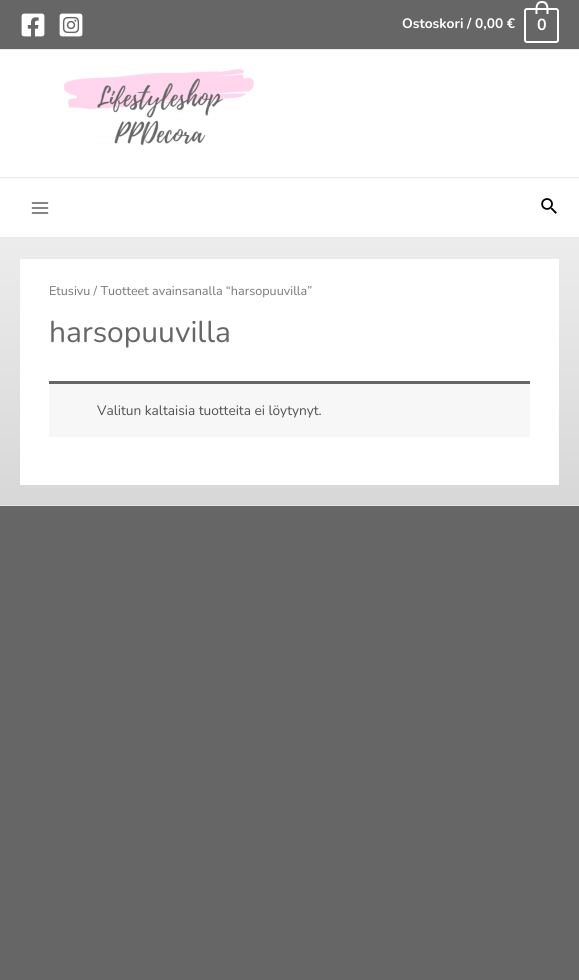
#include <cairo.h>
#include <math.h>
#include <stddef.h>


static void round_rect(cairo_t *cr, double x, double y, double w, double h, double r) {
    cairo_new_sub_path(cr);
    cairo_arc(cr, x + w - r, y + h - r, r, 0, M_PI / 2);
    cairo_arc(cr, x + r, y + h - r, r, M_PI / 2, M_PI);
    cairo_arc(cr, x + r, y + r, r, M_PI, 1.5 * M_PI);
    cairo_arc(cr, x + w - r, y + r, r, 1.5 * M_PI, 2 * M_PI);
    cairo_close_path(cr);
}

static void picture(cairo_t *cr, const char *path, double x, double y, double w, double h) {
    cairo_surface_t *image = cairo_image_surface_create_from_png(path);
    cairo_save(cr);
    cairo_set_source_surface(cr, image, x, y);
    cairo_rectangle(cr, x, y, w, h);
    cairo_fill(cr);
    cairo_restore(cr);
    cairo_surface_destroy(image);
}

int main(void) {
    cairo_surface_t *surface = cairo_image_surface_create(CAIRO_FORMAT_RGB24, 579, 980);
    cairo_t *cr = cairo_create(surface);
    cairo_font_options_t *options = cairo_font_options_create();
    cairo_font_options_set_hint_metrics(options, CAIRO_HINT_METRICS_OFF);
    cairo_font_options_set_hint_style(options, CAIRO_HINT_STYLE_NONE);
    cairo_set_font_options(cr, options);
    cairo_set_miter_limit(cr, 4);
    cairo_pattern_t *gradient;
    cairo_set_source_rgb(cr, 1, 1, 1);
    cairo_paint(cr);
    gradient = cairo_pattern_create_linear(289, 0, 290, 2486);
    cairo_pattern_add_color_stop_rgba(gradient, 0, 1, 1, 1, 1);
    cairo_pattern_add_color_stop_rgba(gradient, 0.78, 0.4, 0.4, 0.4, 1);
    cairo_set_source(cr, gradient);
    cairo_pattern_destroy(gradient);
    cairo_rectangle(cr, 0, 238, 579, 267);
    cairo_fill(cr);
    cairo_set_source_rgb(cr, 0.4, 0.4, 0.4);
    cairo_rectangle(cr, 0, 0, 579, 49);
    cairo_fill(cr);
    cairo_set_source_rgb(cr, 0.918, 0.918, 0.918);
    cairo_rectangle(cr, 0, 49, 579, 1);
    cairo_fill(cr);
    picture(cr, "img1.png", 21, 13, 24, 24);
    picture(cr, "img2.png", 59, 13, 24, 24);
    cairo_select_font_face(cr, "Nunito", CAIRO_FONT_SLANT_NORMAL, CAIRO_FONT_WEIGHT_BOLD);
    cairo_set_font_size(cr, 13.7);
    cairo_set_source_rgb(cr, 1, 1, 1);
    cairo_move_to(cr, 402, 28);
    cairo_show_text(cr, "Ostoskori / 0,00 €");
    round_rect(cr, 525, 9, 33, 33, 2);
    cairo_stroke(cr);
    cairo_set_fill_rule(cr, CAIRO_FILL_RULE_EVEN_ODD);
    cairo_new_path(cr);
    cairo_move_to(cr, 542, 1);
    cairo_curve_to(cr, 549.5, 1, 548.5, 9, 548.5, 14);
    cairo_line_to(cr, 535.5, 14);
    cairo_curve_to(cr, 535.5, 9, 534.5, 1, 542, 1);
    cairo_close_path(cr);
    cairo_move_to(cr, 542, 3);
    cairo_curve_to(cr, 547.5, 3, 546.5, 10.5, 546.5, 14);
    cairo_line_to(cr, 537.5, 14);
    cairo_curve_to(cr, 537.5, 10.5, 536, 3, 542, 3);
    cairo_close_path(cr);
    cairo_fill(cr);
    cairo_set_font_size(cr, 16);
    cairo_move_to(cr, 537, 30);
    cairo_show_text(cr, "0");
    cairo_set_source_rgb(cr, 0.918, 0.918, 0.918);
    cairo_rectangle(cr, 0, 177, 579, 1);
    cairo_fill(cr);
    picture(cr, "img3.png", 64, 69, 190, 76);
    cairo_rectangle(cr, 0, 237, 579, 1);
    cairo_fill(cr);
    picture(cr, "img4.png", 31, 202, 18, 12);
    picture(cr, "img5.png", 541, 198, 16, 16);
    cairo_set_source_rgb(cr, 1, 1, 1);
    cairo_rectangle(cr, 20, 259, 539, 226);
    cairo_fill(cr);
    cairo_select_font_face(cr, "Nunito", CAIRO_FONT_SLANT_NORMAL, CAIRO_FONT_WEIGHT_NORMAL);
    cairo_set_font_size(cr, 12.6);
    cairo_set_source_rgb(cr, 0.467, 0.467, 0.467);
    cairo_move_to(cr, 49, 295);
    cairo_show_text(cr, "Etusivu / Tuotteet avainsanalla “harsopuuvilla”");
    cairo_set_font_size(cr, 30);
    cairo_set_source_rgb(cr, 0.4, 0.4, 0.4);
    cairo_move_to(cr, 49, 342);
    cairo_show_text(cr, "harsopuuvilla");
    cairo_set_source_rgb(cr, 0.969, 0.965, 0.969);
    cairo_rectangle(cr, 49, 384, 481, 53);
    cairo_fill(cr);
    cairo_set_source_rgb(cr, 0.4, 0.4, 0.4);
    cairo_rectangle(cr, 49, 381, 481, 3);
    cairo_fill(cr);
    cairo_set_font_size(cr, 13.7);
    cairo_set_source_rgb(cr, 0.318, 0.318, 0.318);
    cairo_move_to(cr, 97, 415);
    cairo_show_text(cr, "Valitun kaltaisia tuotteita ei löytynyt.");
    cairo_set_source_rgb(cr, 0.4, 0.4, 0.4);
    cairo_rectangle(cr, 0, 506, 579, 474);
    cairo_fill(cr);
    cairo_set_source_rgb(cr, 0.902, 0.902, 0.902);
    cairo_rectangle(cr, 0, 505, 579, 1);
    cairo_fill(cr);
    cairo_surface_write_to_png(surface, "page.png");
    cairo_font_options_destroy(options);
    cairo_destroy(cr);
    cairo_surface_destroy(surface);
    return 0;
}
